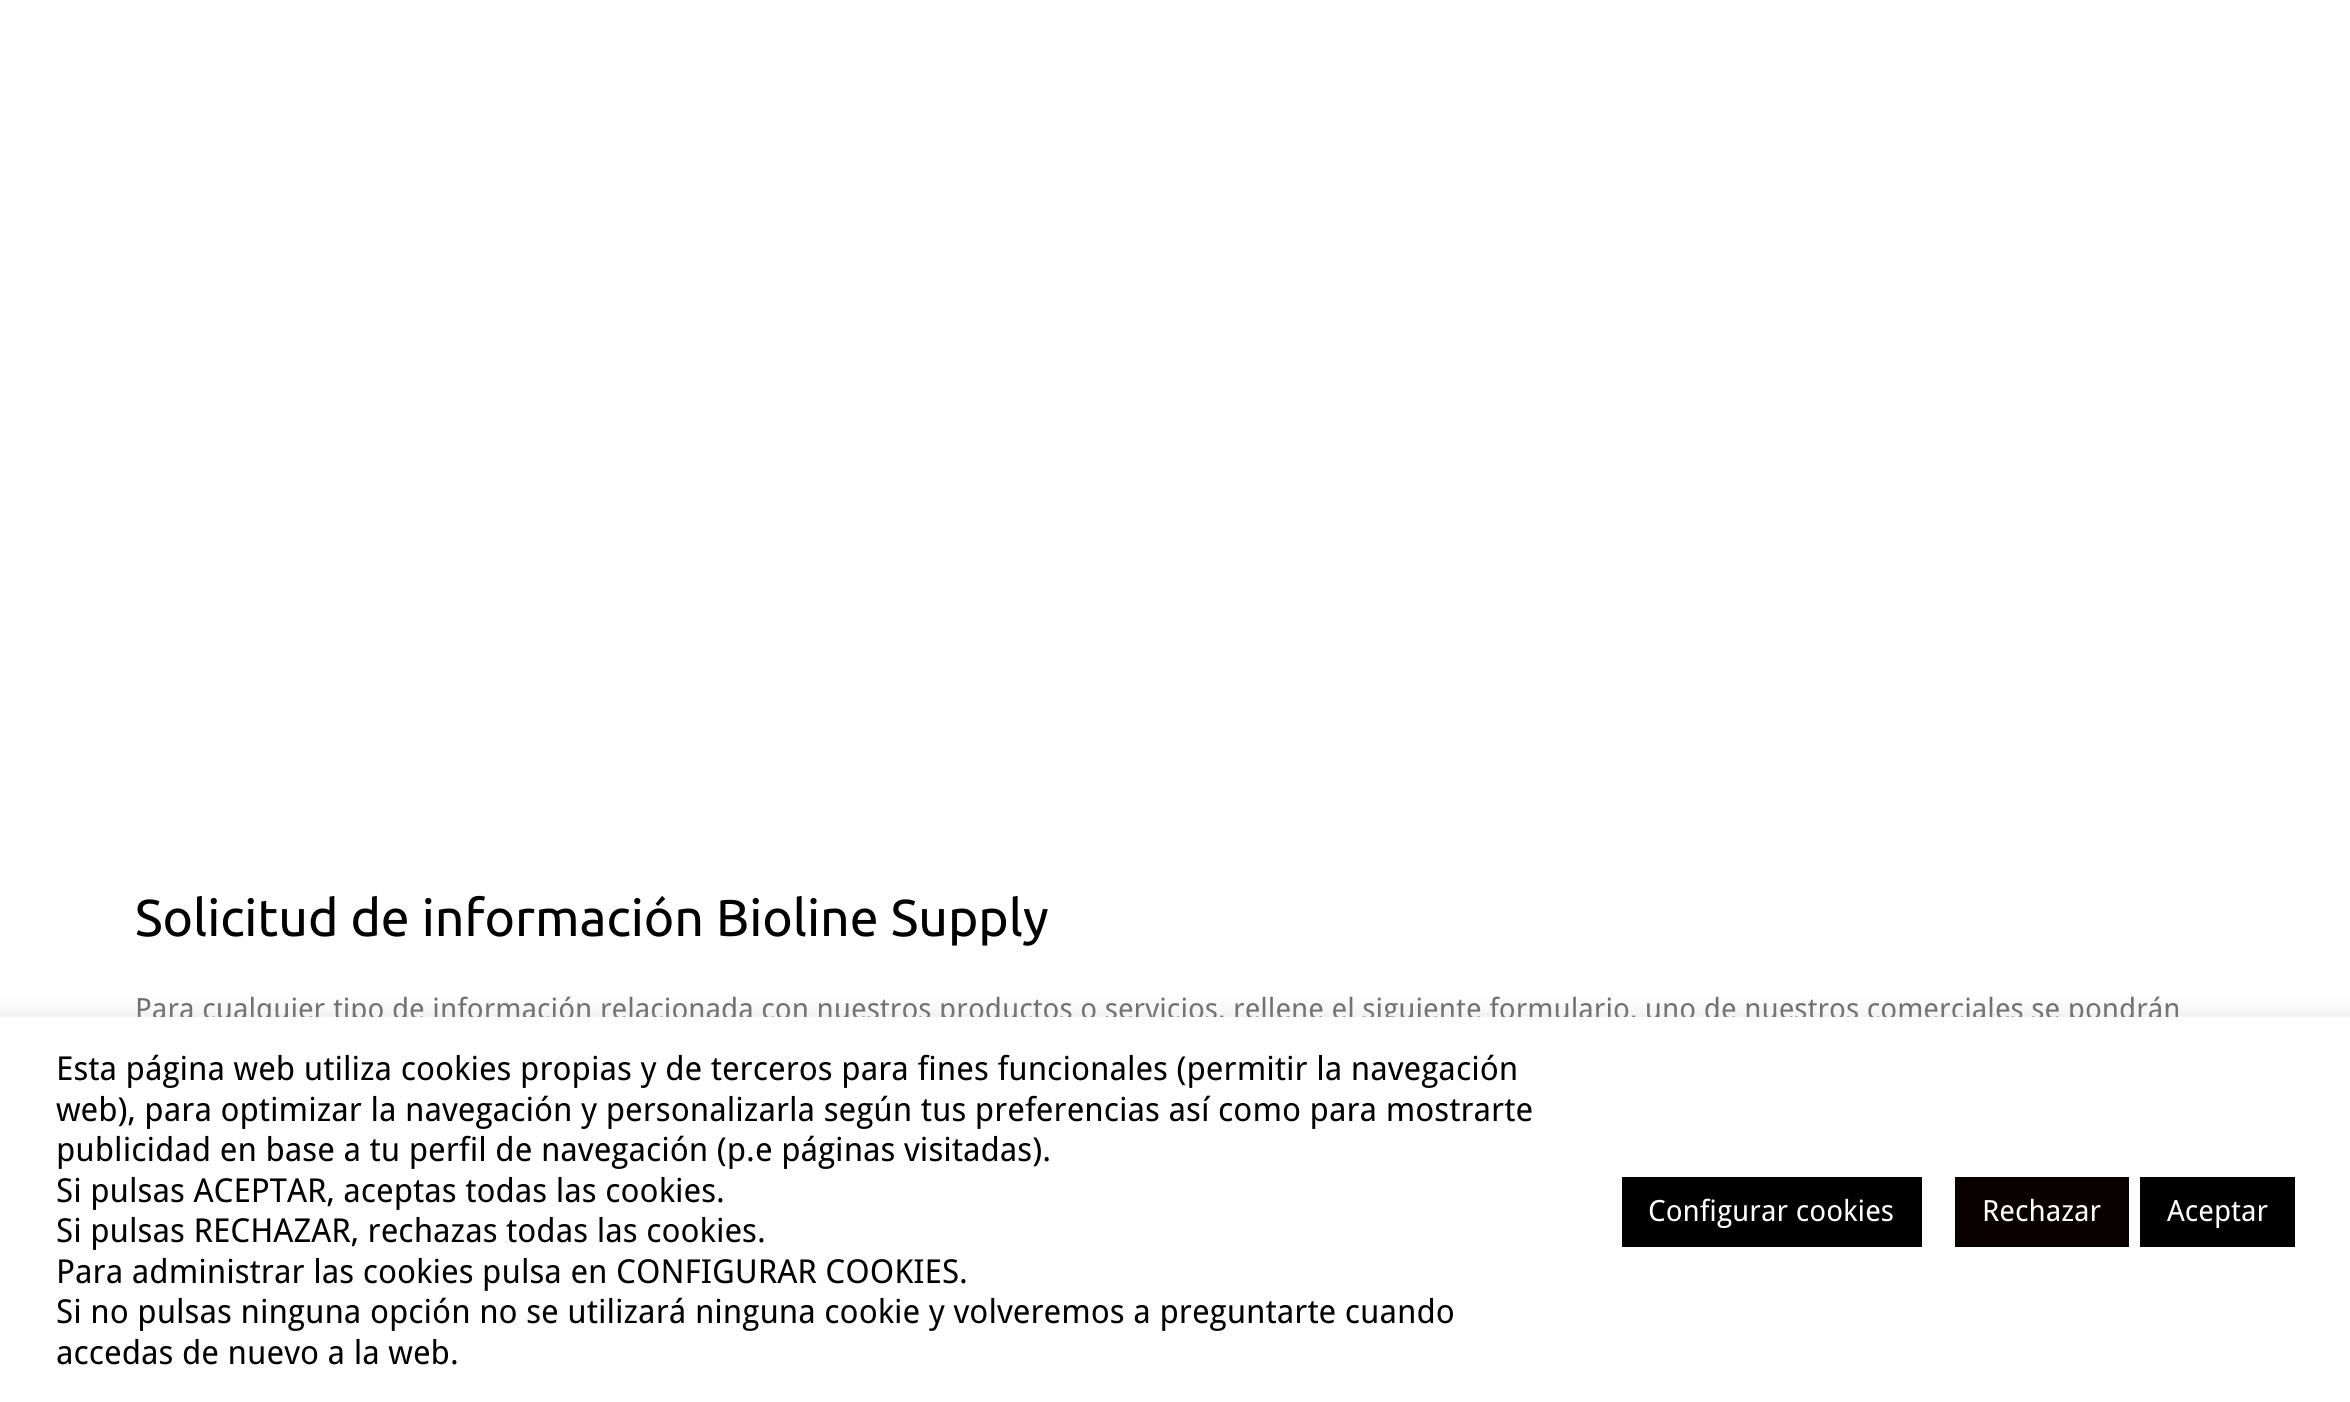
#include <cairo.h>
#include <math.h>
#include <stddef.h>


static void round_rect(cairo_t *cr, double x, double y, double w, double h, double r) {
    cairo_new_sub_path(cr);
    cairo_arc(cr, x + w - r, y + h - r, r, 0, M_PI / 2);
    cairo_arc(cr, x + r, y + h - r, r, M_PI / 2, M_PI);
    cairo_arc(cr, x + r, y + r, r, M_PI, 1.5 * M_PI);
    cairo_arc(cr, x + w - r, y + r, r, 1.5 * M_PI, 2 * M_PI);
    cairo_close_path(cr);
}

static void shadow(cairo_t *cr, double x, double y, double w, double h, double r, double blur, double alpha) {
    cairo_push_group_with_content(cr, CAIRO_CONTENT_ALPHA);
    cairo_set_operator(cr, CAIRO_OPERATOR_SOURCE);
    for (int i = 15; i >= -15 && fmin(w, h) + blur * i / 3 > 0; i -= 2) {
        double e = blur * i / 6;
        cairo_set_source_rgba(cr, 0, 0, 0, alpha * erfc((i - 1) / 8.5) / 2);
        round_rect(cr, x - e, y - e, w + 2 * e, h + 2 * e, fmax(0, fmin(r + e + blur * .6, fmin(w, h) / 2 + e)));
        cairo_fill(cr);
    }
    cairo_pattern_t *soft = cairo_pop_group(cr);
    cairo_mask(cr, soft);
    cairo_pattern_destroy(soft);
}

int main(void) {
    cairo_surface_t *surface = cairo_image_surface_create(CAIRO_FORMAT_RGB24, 2350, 1402);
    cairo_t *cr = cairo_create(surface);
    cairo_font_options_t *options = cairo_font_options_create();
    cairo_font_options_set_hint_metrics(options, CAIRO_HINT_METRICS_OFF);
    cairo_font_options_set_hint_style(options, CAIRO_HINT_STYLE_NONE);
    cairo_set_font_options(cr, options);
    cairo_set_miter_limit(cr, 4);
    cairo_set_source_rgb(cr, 1, 1, 1);
    cairo_paint(cr);
    cairo_select_font_face(cr, "Ubuntu", CAIRO_FONT_SLANT_NORMAL, CAIRO_FONT_WEIGHT_NORMAL);
    cairo_set_font_size(cr, 51.75);
    cairo_set_source_rgb(cr, 0, 0, 0);
    cairo_move_to(cr, 135, 936);
    cairo_show_text(cr, "Solicitud de información Bioline Supply");
    cairo_select_font_face(cr, "Droid Sans", CAIRO_FONT_SLANT_NORMAL, CAIRO_FONT_WEIGHT_NORMAL);
    cairo_set_font_size(cr, 29.25);
    cairo_set_source_rgb(cr, 0.431, 0.431, 0.431);
    cairo_move_to(cr, 135, 1019);
    cairo_show_text(cr, "Para cualquier tipo de información relacionada con nuestros productos o servicios, rellene el siguiente formulario, uno de nuestros comerciales se pondrán");
    cairo_set_source_rgb(cr, 0.675, 0.671, 0.671);
    shadow(cr, 0, 1015, 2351, 387, 0, 11, 0.3);
    cairo_set_source_rgb(cr, 1, 1, 1);
    cairo_rectangle(cr, 0, 1017, 2350, 385);
    cairo_fill(cr);
    cairo_set_font_size(cr, 33);
    cairo_set_source_rgb(cr, 0, 0, 0);
    cairo_move_to(cr, 56, 1080);
    cairo_show_text(cr, "Esta página web utiliza cookies propias y de terceros para fines funcionales (permitir la navegación");
    cairo_move_to(cr, 56, 1121);
    cairo_show_text(cr, "web), para optimizar la navegación y personalizarla según tus preferencias así como para mostrarte");
    cairo_move_to(cr, 56, 1161);
    cairo_show_text(cr, "publicidad en base a tu perfil de navegación (p.e páginas visitadas).");
    cairo_move_to(cr, 56, 1202);
    cairo_show_text(cr, "Si pulsas ACEPTAR, aceptas todas las cookies.");
    cairo_move_to(cr, 56, 1242);
    cairo_show_text(cr, "Si pulsas RECHAZAR, rechazas todas las cookies.");
    cairo_move_to(cr, 56, 1283);
    cairo_show_text(cr, "Para administrar las cookies pulsa en CONFIGURAR COOKIES.");
    cairo_move_to(cr, 56, 1323);
    cairo_show_text(cr, "Si no pulsas ninguna opción no se utilizará ninguna cookie y volveremos a preguntarte cuando");
    cairo_move_to(cr, 56, 1364);
    cairo_show_text(cr, "accedas de nuevo a la web.");
    cairo_rectangle(cr, 1622, 1177, 300, 70);
    cairo_fill(cr);
    cairo_set_font_size(cr, 29.25);
    cairo_set_source_rgb(cr, 1, 1, 1);
    cairo_move_to(cr, 1648, 1221);
    cairo_show_text(cr, "Configurar cookies");
    cairo_set_source_rgb(cr, 0.039, 0, 0);
    cairo_rectangle(cr, 1955, 1177, 174, 70);
    cairo_fill(cr);
    cairo_set_source_rgb(cr, 1, 1, 1);
    cairo_move_to(cr, 1982, 1221);
    cairo_show_text(cr, "Rechazar");
    cairo_set_source_rgb(cr, 0, 0, 0);
    cairo_rectangle(cr, 2140, 1177, 155, 70);
    cairo_fill(cr);
    cairo_set_source_rgb(cr, 1, 1, 1);
    cairo_move_to(cr, 2167, 1221);
    cairo_show_text(cr, "Aceptar");
    cairo_surface_write_to_png(surface, "page.png");
    cairo_font_options_destroy(options);
    cairo_destroy(cr);
    cairo_surface_destroy(surface);
    return 0;
}
